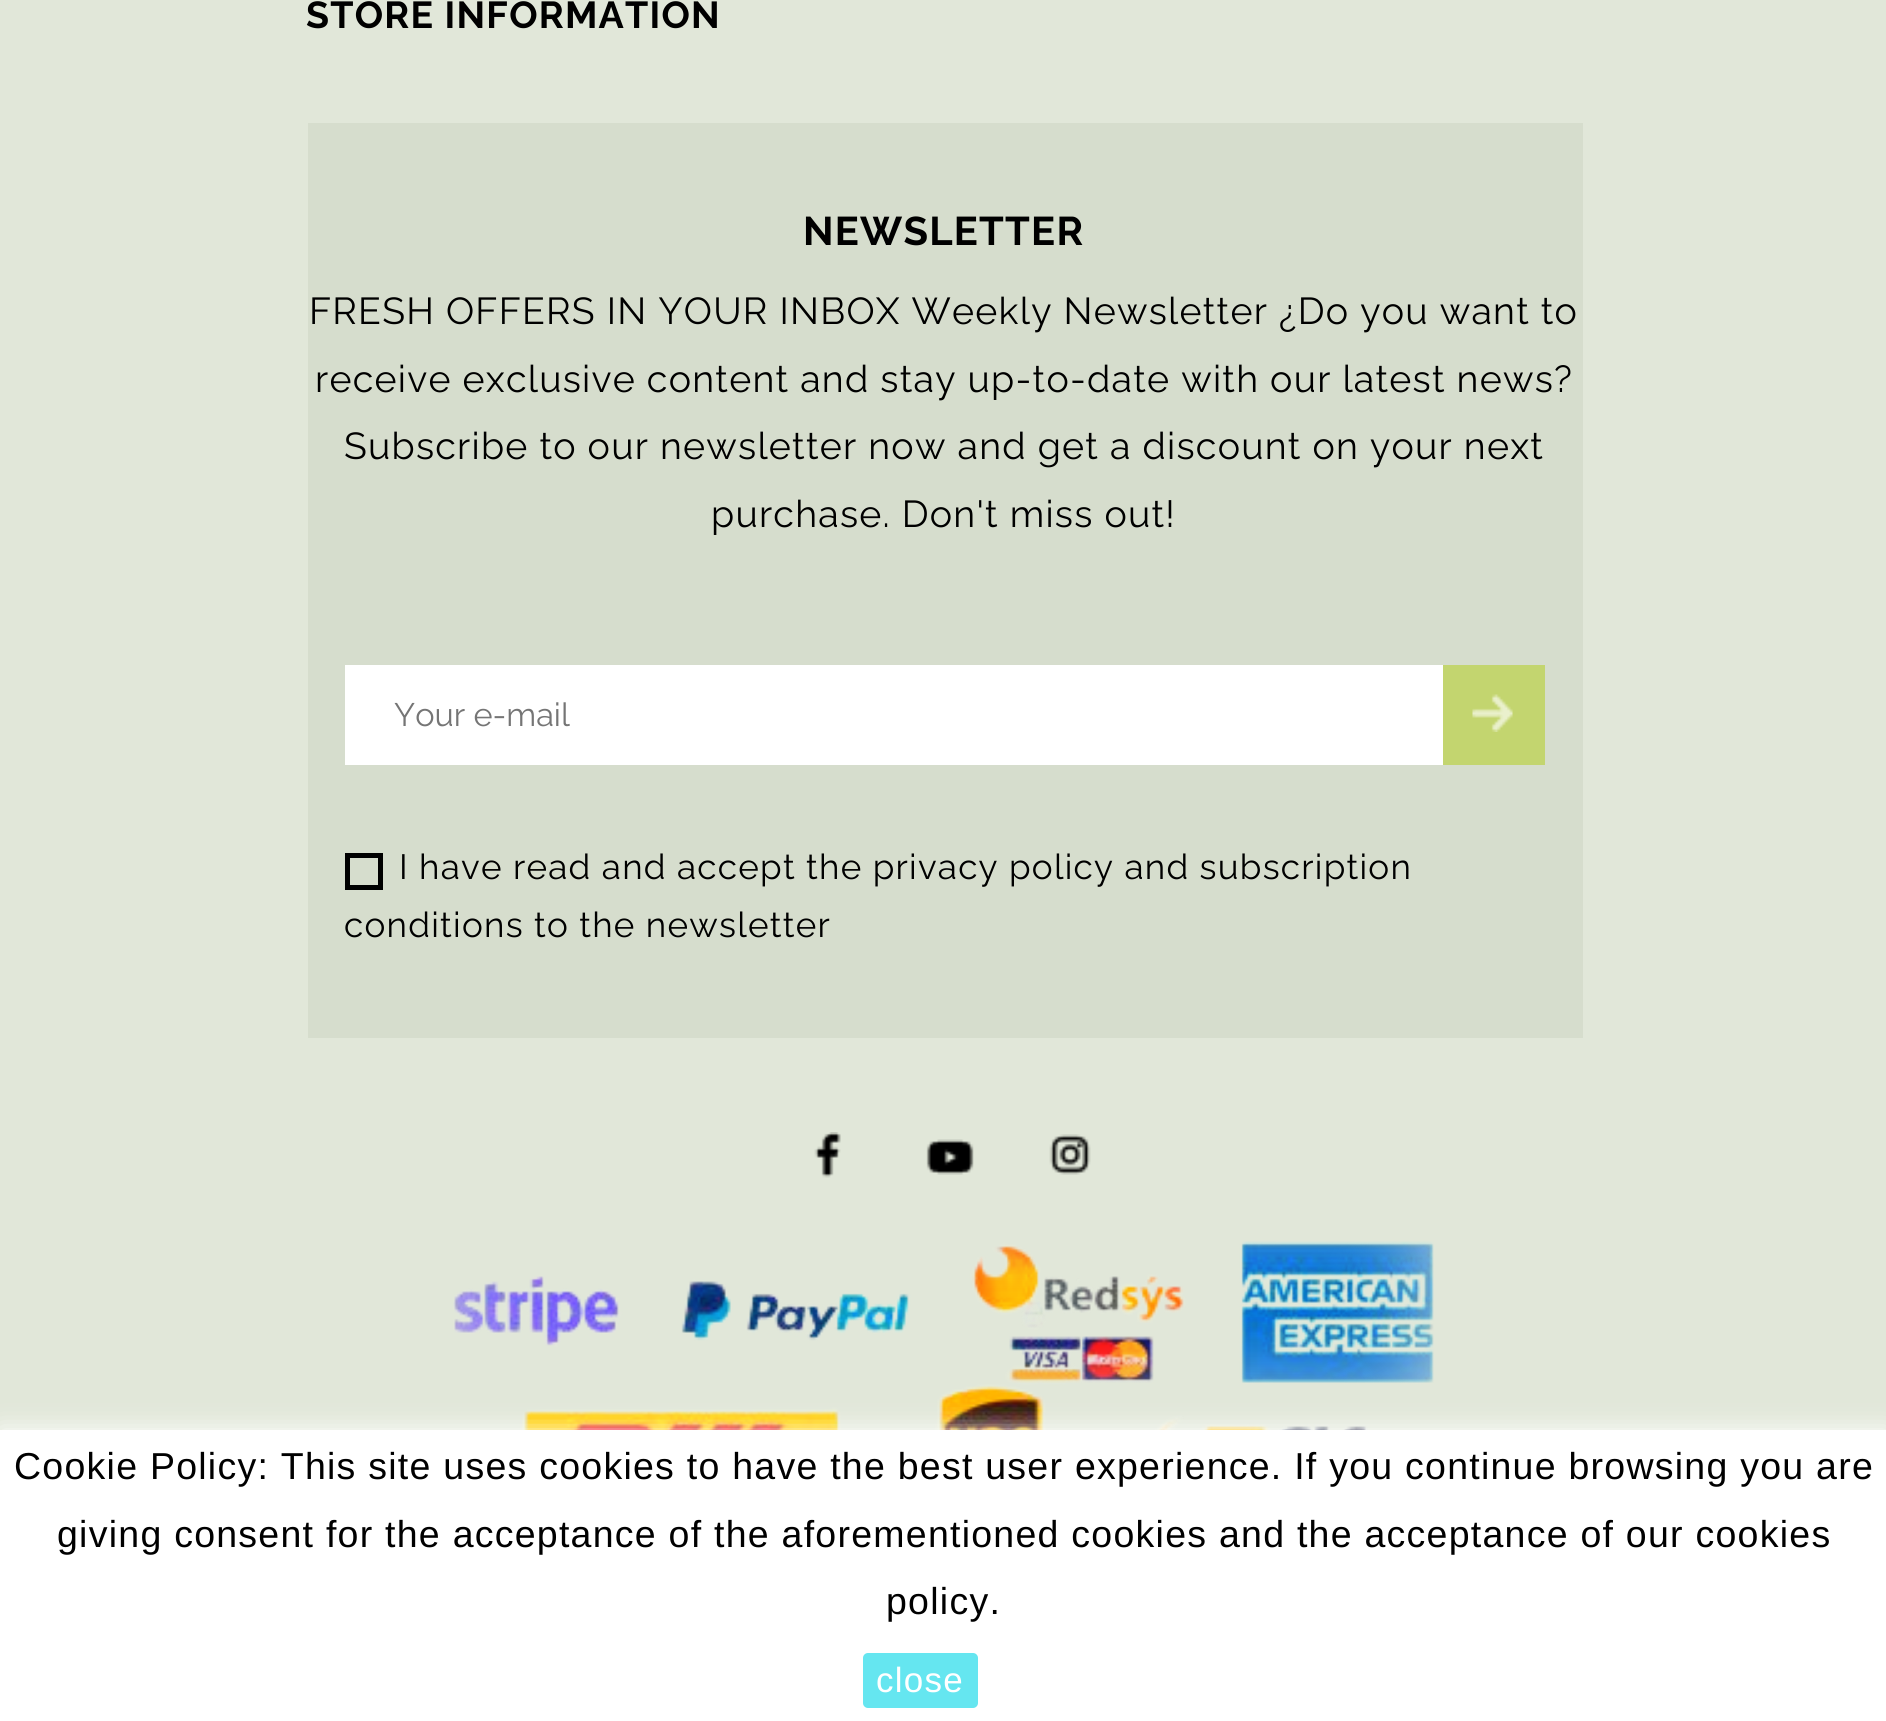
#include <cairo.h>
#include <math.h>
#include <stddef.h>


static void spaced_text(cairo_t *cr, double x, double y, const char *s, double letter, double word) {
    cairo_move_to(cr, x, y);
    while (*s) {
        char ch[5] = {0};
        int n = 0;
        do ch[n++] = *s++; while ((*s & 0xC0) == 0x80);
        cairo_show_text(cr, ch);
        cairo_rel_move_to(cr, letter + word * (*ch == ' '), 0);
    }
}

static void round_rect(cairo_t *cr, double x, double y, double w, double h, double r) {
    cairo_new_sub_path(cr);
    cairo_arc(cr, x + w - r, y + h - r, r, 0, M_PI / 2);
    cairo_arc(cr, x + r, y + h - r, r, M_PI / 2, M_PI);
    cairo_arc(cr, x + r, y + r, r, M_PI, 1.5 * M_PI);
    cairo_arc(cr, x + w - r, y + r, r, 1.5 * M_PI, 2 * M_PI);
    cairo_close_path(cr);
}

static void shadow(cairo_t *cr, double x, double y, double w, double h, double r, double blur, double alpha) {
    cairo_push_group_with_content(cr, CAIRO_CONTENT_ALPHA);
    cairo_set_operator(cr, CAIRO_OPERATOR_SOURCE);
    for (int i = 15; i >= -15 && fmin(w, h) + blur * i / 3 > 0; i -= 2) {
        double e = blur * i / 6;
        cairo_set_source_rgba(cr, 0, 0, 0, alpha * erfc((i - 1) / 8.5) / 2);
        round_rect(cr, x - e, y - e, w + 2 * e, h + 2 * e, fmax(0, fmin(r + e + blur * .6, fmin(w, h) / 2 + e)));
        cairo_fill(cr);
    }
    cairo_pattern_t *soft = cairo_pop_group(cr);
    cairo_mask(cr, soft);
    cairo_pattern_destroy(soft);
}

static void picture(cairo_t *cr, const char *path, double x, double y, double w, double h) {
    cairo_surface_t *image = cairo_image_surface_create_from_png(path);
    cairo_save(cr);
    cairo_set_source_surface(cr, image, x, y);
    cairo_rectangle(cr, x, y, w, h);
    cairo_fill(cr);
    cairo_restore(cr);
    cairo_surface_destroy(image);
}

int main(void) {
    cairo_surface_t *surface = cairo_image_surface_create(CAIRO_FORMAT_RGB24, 1886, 1721);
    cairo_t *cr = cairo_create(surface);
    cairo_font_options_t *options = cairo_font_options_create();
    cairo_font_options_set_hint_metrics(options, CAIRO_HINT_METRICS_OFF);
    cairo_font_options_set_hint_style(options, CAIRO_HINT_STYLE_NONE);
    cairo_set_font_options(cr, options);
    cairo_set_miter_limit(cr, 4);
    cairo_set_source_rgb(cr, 0.882, 0.906, 0.851);
    cairo_paint(cr);
    cairo_select_font_face(cr, "Raleway", CAIRO_FONT_SLANT_NORMAL, CAIRO_FONT_WEIGHT_BOLD);
    cairo_set_font_size(cr, 37.5);
    cairo_set_source_rgb(cr, 0, 0, 0);
    spaced_text(cr, 306, 28, "STORE INFORMATION", 1.25, 0);
    cairo_set_source_rgb(cr, 0.839, 0.867, 0.804);
    cairo_rectangle(cr, 308, 123, 1275, 915);
    cairo_fill(cr);
    cairo_set_font_size(cr, 40);
    cairo_set_source_rgb(cr, 0, 0, 0);
    spaced_text(cr, 803, 245, "NEWSLETTER", 1.25, 0);
    cairo_select_font_face(cr, "Raleway", CAIRO_FONT_SLANT_NORMAL, CAIRO_FONT_WEIGHT_NORMAL);
    cairo_set_font_size(cr, 37.5);
    spaced_text(cr, 309, 324, "FRESH OFFERS IN YOUR INBOX Weekly Newsletter ¿Do you want to", 1.25, 0);
    spaced_text(cr, 315, 392, "receive exclusive content and stay up-to-date with our latest news?", 1.25, 0);
    spaced_text(cr, 344, 459, "Subscribe to our newsletter now and get a discount on your next", 1.25, 0);
    spaced_text(cr, 711, 527, "purchase. Don't miss out!", 1.25, 0);
    cairo_set_source_rgb(cr, 1, 1, 1);
    cairo_rectangle(cr, 345, 665, 1098, 100);
    cairo_fill(cr);
    cairo_set_font_size(cr, 32.5);
    cairo_set_source_rgb(cr, 0.459, 0.459, 0.459);
    cairo_move_to(cr, 394, 726);
    cairo_show_text(cr, "Your e-mail");
    cairo_set_source_rgb(cr, 0.765, 0.835, 0.435);
    cairo_rectangle(cr, 1443, 665, 102, 100);
    cairo_fill(cr);
    picture(cr, "img1.png", 1472, 694, 41, 38);
    cairo_rectangle(cr, 347.5, 855.5, 33, 32);
    cairo_set_source_rgb(cr, 0, 0, 0);
    cairo_set_line_width(cr, 5);
    cairo_stroke(cr);
    cairo_set_font_size(cr, 35);
    spaced_text(cr, 399, 879, "I have read and accept the privacy policy and subscription", 1.25, 0);
    spaced_text(cr, 344, 937, "conditions to the newsletter", 1.25, 0);
    picture(cr, "img5.png", 453, 1241, 981, 189);
    cairo_set_source_rgb(cr, 1, 1, 1);
    shadow(cr, 0, 1430, 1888, 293, 0, 12.5, 1);
    cairo_set_source_rgb(cr, 1, 1, 1);
    cairo_rectangle(cr, 0, 1430, 1886, 291);
    cairo_fill(cr);
    cairo_select_font_face(cr, "Liberation Sans", CAIRO_FONT_SLANT_NORMAL, CAIRO_FONT_WEIGHT_NORMAL);
    cairo_set_font_size(cr, 37.5);
    cairo_set_source_rgb(cr, 0, 0, 0);
    spaced_text(cr, 14, 1479, "Cookie Policy: This site uses cookies to have the best user experience. If you continue browsing you are", 1.25, 0);
    spaced_text(cr, 57, 1547, "giving consent for the acceptance of the aforementioned cookies and the acceptance of our cookies", 1.25, 0);
    spaced_text(cr, 886, 1614, "policy.", 1.25, 0);
    cairo_set_source_rgb(cr, 0.396, 0.902, 0.941);
    round_rect(cr, 863, 1653, 115, 55, 5);
    cairo_fill(cr);
    cairo_set_font_size(cr, 35);
    cairo_set_source_rgb(cr, 1, 1, 1);
    spaced_text(cr, 876, 1692, "close", 1.25, 0);
    picture(cr, "img2.png", 814, 1132, 27, 46);
    picture(cr, "img3.png", 926, 1139, 48, 36);
    picture(cr, "img4.png", 1049, 1134, 42, 41);
    cairo_surface_write_to_png(surface, "page.png");
    cairo_font_options_destroy(options);
    cairo_destroy(cr);
    cairo_surface_destroy(surface);
    return 0;
}
